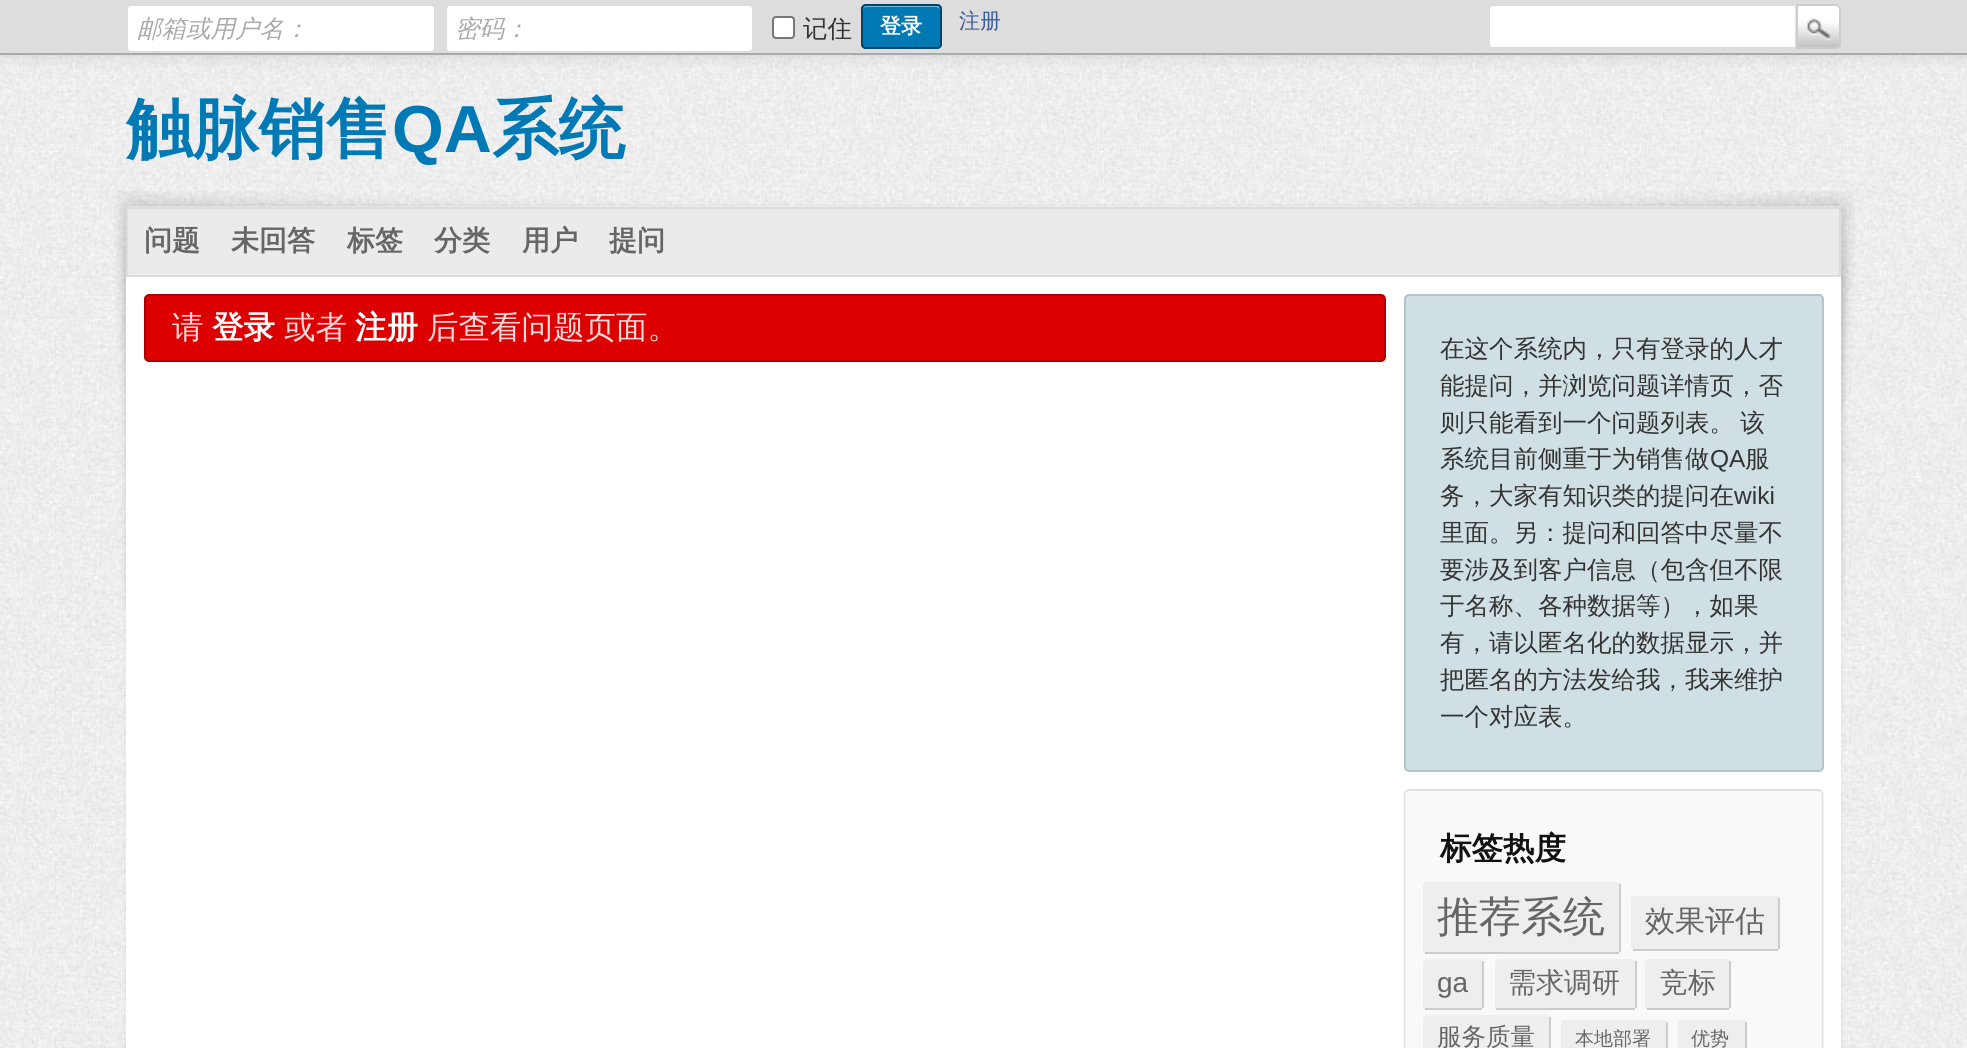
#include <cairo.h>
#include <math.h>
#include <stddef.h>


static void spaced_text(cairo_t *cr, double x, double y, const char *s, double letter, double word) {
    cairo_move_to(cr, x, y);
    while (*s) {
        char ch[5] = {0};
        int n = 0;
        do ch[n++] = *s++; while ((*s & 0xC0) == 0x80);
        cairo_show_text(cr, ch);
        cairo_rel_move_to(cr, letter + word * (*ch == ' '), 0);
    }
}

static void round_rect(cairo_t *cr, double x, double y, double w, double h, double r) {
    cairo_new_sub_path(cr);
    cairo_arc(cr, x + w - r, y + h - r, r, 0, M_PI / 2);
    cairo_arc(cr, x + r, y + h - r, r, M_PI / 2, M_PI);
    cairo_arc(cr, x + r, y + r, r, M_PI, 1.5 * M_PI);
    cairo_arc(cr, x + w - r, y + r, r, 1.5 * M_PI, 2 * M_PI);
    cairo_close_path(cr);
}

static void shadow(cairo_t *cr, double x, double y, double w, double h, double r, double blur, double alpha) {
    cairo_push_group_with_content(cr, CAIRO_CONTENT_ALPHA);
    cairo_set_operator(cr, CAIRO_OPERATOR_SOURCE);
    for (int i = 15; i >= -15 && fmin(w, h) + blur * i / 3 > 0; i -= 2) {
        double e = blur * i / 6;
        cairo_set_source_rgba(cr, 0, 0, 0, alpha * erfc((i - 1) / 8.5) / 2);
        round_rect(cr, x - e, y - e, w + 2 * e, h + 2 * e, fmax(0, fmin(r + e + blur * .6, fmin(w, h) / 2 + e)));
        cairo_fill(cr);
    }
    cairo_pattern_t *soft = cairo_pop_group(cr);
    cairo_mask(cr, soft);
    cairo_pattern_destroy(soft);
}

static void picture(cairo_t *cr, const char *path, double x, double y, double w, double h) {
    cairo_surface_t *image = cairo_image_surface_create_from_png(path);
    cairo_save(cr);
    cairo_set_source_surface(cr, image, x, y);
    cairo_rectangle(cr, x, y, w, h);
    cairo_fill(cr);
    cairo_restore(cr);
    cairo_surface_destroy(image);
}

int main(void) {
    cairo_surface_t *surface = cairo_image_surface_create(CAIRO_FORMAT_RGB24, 1967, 1048);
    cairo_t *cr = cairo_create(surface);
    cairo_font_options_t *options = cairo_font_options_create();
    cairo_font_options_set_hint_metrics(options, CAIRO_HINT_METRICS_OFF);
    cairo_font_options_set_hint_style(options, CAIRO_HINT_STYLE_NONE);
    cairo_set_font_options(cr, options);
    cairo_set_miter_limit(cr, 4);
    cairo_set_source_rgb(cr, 1, 1, 1);
    cairo_paint(cr);
    picture(cr, "img1.png", 0, 55, 1967, 993);
    cairo_set_source_rgb(cr, 0, 0, 0);
    shadow(cr, 0, 0, 1967, 54, 0, 9, 0.15);
    cairo_set_source_rgb(cr, 0.867, 0.867, 0.867);
    cairo_rectangle(cr, 0, 0, 1967, 53);
    cairo_fill(cr);
    cairo_set_source_rgb(cr, 0.667, 0.667, 0.667);
    cairo_rectangle(cr, 0, 53, 1967, 2);
    cairo_fill(cr);
    cairo_set_source_rgb(cr, 1, 1, 1);
    round_rect(cr, 127, 5, 308, 47, 4);
    cairo_fill_preserve(cr);
    cairo_set_source_rgb(cr, 0.867, 0.867, 0.867);
    cairo_stroke(cr);
    cairo_select_font_face(cr, "WenQuanYi Zen Hei Medium", CAIRO_FONT_SLANT_ITALIC, CAIRO_FONT_WEIGHT_NORMAL);
    cairo_set_font_size(cr, 24.5);
    cairo_set_source_rgb(cr, 0.667, 0.667, 0.667);
    cairo_move_to(cr, 137, 37);
    cairo_show_text(cr, "邮箱或用户名：");
    cairo_set_source_rgb(cr, 1, 1, 1);
    round_rect(cr, 446, 5, 307, 47, 4);
    cairo_fill_preserve(cr);
    cairo_set_source_rgb(cr, 0.867, 0.867, 0.867);
    cairo_stroke(cr);
    cairo_set_source_rgb(cr, 0.667, 0.667, 0.667);
    cairo_move_to(cr, 455, 37);
    cairo_show_text(cr, "密码：");
    cairo_set_source_rgb(cr, 1, 1, 1);
    round_rect(cr, 773, 17, 21, 21, 3);
    cairo_fill_preserve(cr);
    cairo_set_source_rgb(cr, 0.463, 0.463, 0.463);
    cairo_stroke(cr);
    cairo_select_font_face(cr, "WenQuanYi Zen Hei Medium", CAIRO_FONT_SLANT_NORMAL, CAIRO_FONT_WEIGHT_NORMAL);
    cairo_set_source_rgb(cr, 0.2, 0.2, 0.2);
    cairo_move_to(cr, 803, 37);
    cairo_show_text(cr, "记住");
    cairo_set_source_rgb(cr, 0.004, 0.475, 0.71);
    round_rect(cr, 861, 4, 81, 45, 5);
    cairo_fill(cr);
    cairo_set_source_rgb(cr, 0.502, 0.737, 0.855);
    cairo_new_path(cr);
    cairo_move_to(cr, 866, 7);
    cairo_line_to(cr, 936, 7);
    cairo_curve_to(cr, 938, 7, 940, 9, 940, 10);
    cairo_curve_to(cr, 940, 2, 929, 5, 924, 5);
    cairo_line_to(cr, 878, 5);
    cairo_curve_to(cr, 874, 5, 863, 2, 863, 10);
    cairo_curve_to(cr, 863, 9, 864, 7, 866, 7);
    cairo_close_path(cr);
    cairo_fill(cr);
    round_rect(cr, 862, 5, 79, 43, 4);
    cairo_set_source_rgb(cr, 0, 0.271, 0.4);
    cairo_stroke(cr);
    cairo_select_font_face(cr, "WenQuanYi Zen Hei", CAIRO_FONT_SLANT_NORMAL, CAIRO_FONT_WEIGHT_BOLD);
    cairo_set_font_size(cr, 21);
    cairo_set_source_rgb(cr, 1, 1, 1);
    cairo_move_to(cr, 880, 33);
    cairo_show_text(cr, "登录");
    cairo_select_font_face(cr, "WenQuanYi Zen Hei Medium", CAIRO_FONT_SLANT_NORMAL, CAIRO_FONT_WEIGHT_NORMAL);
    cairo_set_source_rgb(cr, 0.231, 0.349, 0.596);
    cairo_move_to(cr, 959, 28);
    cairo_show_text(cr, "注册");
    cairo_set_source_rgb(cr, 1, 1, 1);
    cairo_new_path(cr);
    cairo_move_to(cr, 1493, 5);
    cairo_line_to(cr, 1796, 5);
    cairo_line_to(cr, 1796, 48);
    cairo_line_to(cr, 1493, 48);
    cairo_curve_to(cr, 1491, 48, 1489, 46, 1489, 44);
    cairo_line_to(cr, 1489, 9);
    cairo_curve_to(cr, 1489, 7, 1491, 5, 1493, 5);
    cairo_close_path(cr);
    cairo_fill_preserve(cr);
    cairo_set_source_rgb(cr, 0.867, 0.867, 0.867);
    cairo_stroke(cr);
    picture(cr, "img2.png", 1795, 5, 46, 44);
    cairo_set_source_rgba(cr, 1, 1, 1, 0.5);
    cairo_new_path(cr);
    cairo_move_to(cr, 1797, 7);
    cairo_line_to(cr, 1836, 7);
    cairo_curve_to(cr, 1838, 7, 1839, 9, 1839, 10);
    cairo_line_to(cr, 1839, 9);
    cairo_curve_to(cr, 1839, 7, 1837, 5, 1835, 5);
    cairo_line_to(cr, 1797, 5);
    cairo_close_path(cr);
    cairo_fill(cr);
    cairo_new_path(cr);
    cairo_move_to(cr, 1797, 5);
    cairo_line_to(cr, 1836, 5);
    cairo_curve_to(cr, 1838, 5, 1840, 7, 1840, 9);
    cairo_line_to(cr, 1840, 44);
    cairo_curve_to(cr, 1840, 46, 1838, 48, 1836, 48);
    cairo_line_to(cr, 1797, 48);
    cairo_close_path(cr);
    cairo_set_source_rgb(cr, 0.8, 0.8, 0.8);
    cairo_stroke(cr);
    cairo_select_font_face(cr, "WenQuanYi Zen Hei", CAIRO_FONT_SLANT_NORMAL, CAIRO_FONT_WEIGHT_BOLD);
    cairo_set_font_size(cr, 66.5);
    cairo_set_source_rgb(cr, 0.004, 0.475, 0.71);
    cairo_move_to(cr, 126, 152);
    cairo_show_text(cr, "触脉销售");
    cairo_select_font_face(cr, "Liberation Sans", CAIRO_FONT_SLANT_NORMAL, CAIRO_FONT_WEIGHT_BOLD);
    cairo_move_to(cr, 392, 152);
    cairo_show_text(cr, "QA");
    cairo_select_font_face(cr, "WenQuanYi Zen Hei", CAIRO_FONT_SLANT_NORMAL, CAIRO_FONT_WEIGHT_BOLD);
    cairo_move_to(cr, 492, 152);
    cairo_show_text(cr, "系统");
    picture(cr, "img3.png", 114, 191, 1741, 761);
    cairo_set_source_rgb(cr, 0, 0, 0);
    shadow(cr, 126, 207, 1715, 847, 0, 2, 0.1);
    cairo_set_source_rgb(cr, 1, 1, 1);
    cairo_rectangle(cr, 126, 277, 1715, 771);
    cairo_fill(cr);
    cairo_set_source_rgb(cr, 0.918, 0.918, 0.918);
    cairo_rectangle(cr, 129, 210, 1709, 65);
    cairo_fill(cr);
    cairo_rectangle(cr, 127, 208, 1713, 68);
    cairo_set_source_rgb(cr, 0.867, 0.867, 0.867);
    cairo_stroke(cr);
    cairo_set_font_size(cr, 28);
    cairo_set_source_rgb(cr, 0.4, 0.4, 0.4);
    cairo_move_to(cr, 144, 250);
    cairo_show_text(cr, "问题");
    cairo_move_to(cr, 231, 250);
    cairo_show_text(cr, "未回答");
    cairo_move_to(cr, 347, 250);
    cairo_show_text(cr, "标签");
    cairo_move_to(cr, 434, 250);
    cairo_show_text(cr, "分类");
    cairo_move_to(cr, 522, 250);
    cairo_show_text(cr, "用户");
    cairo_move_to(cr, 609, 250);
    cairo_show_text(cr, "提问");
    cairo_set_source_rgb(cr, 0.867, 0, 0);
    round_rect(cr, 145, 295, 1240, 66, 4);
    cairo_fill_preserve(cr);
    cairo_set_source_rgb(cr, 0.667, 0, 0);
    cairo_stroke(cr);
    cairo_select_font_face(cr, "WenQuanYi Zen Hei Medium", CAIRO_FONT_SLANT_NORMAL, CAIRO_FONT_WEIGHT_NORMAL);
    cairo_set_font_size(cr, 31.5);
    cairo_set_source_rgb(cr, 1, 0.851, 0.851);
    cairo_move_to(cr, 172, 338);
    cairo_show_text(cr, "请");
    cairo_select_font_face(cr, "WenQuanYi Zen Hei", CAIRO_FONT_SLANT_NORMAL, CAIRO_FONT_WEIGHT_BOLD);
    cairo_set_source_rgb(cr, 1, 1, 1);
    cairo_move_to(cr, 212, 338);
    cairo_show_text(cr, "登录");
    cairo_select_font_face(cr, "WenQuanYi Zen Hei Medium", CAIRO_FONT_SLANT_NORMAL, CAIRO_FONT_WEIGHT_NORMAL);
    cairo_set_source_rgb(cr, 1, 0.851, 0.851);
    cairo_move_to(cr, 284, 338);
    cairo_show_text(cr, "或者");
    cairo_select_font_face(cr, "WenQuanYi Zen Hei", CAIRO_FONT_SLANT_NORMAL, CAIRO_FONT_WEIGHT_BOLD);
    cairo_set_source_rgb(cr, 1, 1, 1);
    cairo_move_to(cr, 355, 338);
    cairo_show_text(cr, "注册");
    cairo_select_font_face(cr, "WenQuanYi Zen Hei Medium", CAIRO_FONT_SLANT_NORMAL, CAIRO_FONT_WEIGHT_NORMAL);
    cairo_set_source_rgb(cr, 1, 0.851, 0.851);
    cairo_move_to(cr, 427, 338);
    cairo_show_text(cr, "后查看问题页面。");
    cairo_set_source_rgb(cr, 0.816, 0.875, 0.894);
    round_rect(cr, 1405, 295, 418, 476, 4);
    cairo_fill_preserve(cr);
    cairo_set_source_rgb(cr, 0.714, 0.769, 0.784);
    cairo_stroke(cr);
    cairo_set_font_size(cr, 24.5);
    cairo_set_source_rgb(cr, 0.2, 0.2, 0.2);
    cairo_move_to(cr, 1440, 357);
    cairo_show_text(cr, "在这个系统内，只有登录的人才");
    cairo_move_to(cr, 1440, 394);
    cairo_show_text(cr, "能提问，并浏览问题详情页，否");
    spaced_text(cr, 1440, 431, "则只能看到一个问题列表。 该", 0, -1);
    cairo_move_to(cr, 1440, 467);
    cairo_show_text(cr, "系统目前侧重于为销售做");
    cairo_select_font_face(cr, "Liberation Sans", CAIRO_FONT_SLANT_NORMAL, CAIRO_FONT_WEIGHT_NORMAL);
    cairo_move_to(cr, 1710, 467);
    cairo_show_text(cr, "QA");
    cairo_select_font_face(cr, "WenQuanYi Zen Hei Medium", CAIRO_FONT_SLANT_NORMAL, CAIRO_FONT_WEIGHT_NORMAL);
    cairo_move_to(cr, 1745, 467);
    cairo_show_text(cr, "服");
    cairo_move_to(cr, 1440, 504);
    cairo_show_text(cr, "务，大家有知识类的提问在");
    cairo_select_font_face(cr, "Liberation Sans", CAIRO_FONT_SLANT_NORMAL, CAIRO_FONT_WEIGHT_NORMAL);
    cairo_move_to(cr, 1734, 504);
    cairo_show_text(cr, "wiki");
    cairo_select_font_face(cr, "WenQuanYi Zen Hei Medium", CAIRO_FONT_SLANT_NORMAL, CAIRO_FONT_WEIGHT_NORMAL);
    cairo_move_to(cr, 1440, 541);
    cairo_show_text(cr, "里面。另：提问和回答中尽量不");
    cairo_move_to(cr, 1440, 578);
    cairo_show_text(cr, "要涉及到客户信息（包含但不限");
    cairo_move_to(cr, 1440, 614);
    cairo_show_text(cr, "于名称、各种数据等），如果");
    cairo_move_to(cr, 1440, 651);
    cairo_show_text(cr, "有，请以匿名化的数据显示，并");
    cairo_move_to(cr, 1440, 688);
    cairo_show_text(cr, "把匿名的方法发给我，我来维护");
    cairo_move_to(cr, 1440, 725);
    cairo_show_text(cr, "一个对应表。");
    cairo_set_source_rgb(cr, 0.973, 0.973, 0.973);
    round_rect(cr, 1404, 789, 420, 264, 5);
    cairo_fill(cr);
    cairo_new_path(cr);
    cairo_move_to(cr, 1405.5, 791.5);
    cairo_line_to(cr, 1409, 790);
    cairo_line_to(cr, 1818, 790);
    cairo_line_to(cr, 1821.5, 791.5);
    cairo_set_source_rgb(cr, 0.867, 0.867, 0.867);
    cairo_set_line_width(cr, 1.8);
    cairo_stroke(cr);
    cairo_new_path(cr);
    cairo_move_to(cr, 1821.5, 791.5);
    cairo_curve_to(cr, 1822, 792, 1822.5, 793.5, 1822.5, 794.5);
    cairo_line_to(cr, 1822.5, 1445.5);
    cairo_curve_to(cr, 1822.5, 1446.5, 1822, 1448, 1821.5, 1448.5);
    cairo_curve_to(cr, 1820.5, 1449.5, 1819.5, 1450, 1818, 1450);
    cairo_line_to(cr, 1409, 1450);
    cairo_curve_to(cr, 1407.5, 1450, 1406.5, 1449.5, 1405.5, 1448.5);
    cairo_curve_to(cr, 1405, 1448, 1404.5, 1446.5, 1404.5, 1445.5);
    cairo_line_to(cr, 1404.5, 794.5);
    cairo_curve_to(cr, 1404.5, 793.5, 1405, 792, 1405.5, 791.5);
    cairo_set_source_rgb(cr, 0.898, 0.898, 0.898);
    cairo_stroke(cr);
    cairo_select_font_face(cr, "WenQuanYi Zen Hei", CAIRO_FONT_SLANT_NORMAL, CAIRO_FONT_WEIGHT_BOLD);
    cairo_set_font_size(cr, 31.5);
    cairo_set_source_rgb(cr, 0.067, 0.067, 0.067);
    cairo_move_to(cr, 1440, 859);
    cairo_show_text(cr, "标签热度");
    cairo_set_source_rgb(cr, 0.933, 0.933, 0.933);
    round_rect(cr, 1423, 882, 198, 72, 4);
    cairo_fill(cr);
    cairo_set_source_rgb(cr, 0.8, 0.8, 0.8);
    cairo_rectangle(cr, 1619, 884, 2, 68);
    cairo_fill(cr);
    cairo_rectangle(cr, 1425, 952, 194, 2);
    cairo_fill(cr);
    cairo_select_font_face(cr, "WenQuanYi Zen Hei Medium", CAIRO_FONT_SLANT_NORMAL, CAIRO_FONT_WEIGHT_NORMAL);
    cairo_set_font_size(cr, 42);
    cairo_set_source_rgb(cr, 0.4, 0.4, 0.4);
    cairo_move_to(cr, 1437, 931);
    cairo_show_text(cr, "推荐系统");
    cairo_set_source_rgb(cr, 0.933, 0.933, 0.933);
    round_rect(cr, 1631, 896, 149, 54, 4);
    cairo_fill(cr);
    cairo_set_source_rgb(cr, 0.8, 0.8, 0.8);
    cairo_rectangle(cr, 1778, 898, 2, 51);
    cairo_fill(cr);
    cairo_rectangle(cr, 1633, 949, 145, 2);
    cairo_fill(cr);
    cairo_set_font_size(cr, 30);
    cairo_set_source_rgb(cr, 0.4, 0.4, 0.4);
    cairo_move_to(cr, 1645, 931);
    cairo_show_text(cr, "效果评估");
    cairo_set_source_rgb(cr, 0.933, 0.933, 0.933);
    round_rect(cr, 1423, 959, 61, 51, 4);
    cairo_fill(cr);
    cairo_set_source_rgb(cr, 0.8, 0.8, 0.8);
    cairo_rectangle(cr, 1482, 961, 2, 47);
    cairo_fill(cr);
    cairo_rectangle(cr, 1425, 1008, 57, 2);
    cairo_fill(cr);
    cairo_select_font_face(cr, "Liberation Sans", CAIRO_FONT_SLANT_NORMAL, CAIRO_FONT_WEIGHT_NORMAL);
    cairo_set_font_size(cr, 28);
    cairo_set_source_rgb(cr, 0.4, 0.4, 0.4);
    cairo_move_to(cr, 1437, 992);
    cairo_show_text(cr, "ga");
    cairo_set_source_rgb(cr, 0.933, 0.933, 0.933);
    round_rect(cr, 1495, 959, 141, 51, 4);
    cairo_fill(cr);
    cairo_set_source_rgb(cr, 0.8, 0.8, 0.8);
    cairo_rectangle(cr, 1635, 961, 2, 47);
    cairo_fill(cr);
    cairo_rectangle(cr, 1496, 1008, 139, 2);
    cairo_fill(cr);
    cairo_select_font_face(cr, "WenQuanYi Zen Hei Medium", CAIRO_FONT_SLANT_NORMAL, CAIRO_FONT_WEIGHT_NORMAL);
    cairo_set_source_rgb(cr, 0.4, 0.4, 0.4);
    cairo_move_to(cr, 1508, 992);
    cairo_show_text(cr, "需求调研");
    cairo_set_source_rgb(cr, 0.933, 0.933, 0.933);
    round_rect(cr, 1645, 959, 86, 51, 4);
    cairo_fill(cr);
    cairo_set_source_rgb(cr, 0.8, 0.8, 0.8);
    cairo_rectangle(cr, 1729, 961, 2, 47);
    cairo_fill(cr);
    cairo_rectangle(cr, 1647, 1008, 82, 2);
    cairo_fill(cr);
    cairo_set_source_rgb(cr, 0.4, 0.4, 0.4);
    cairo_move_to(cr, 1660, 992);
    cairo_show_text(cr, "竞标");
    cairo_set_source_rgb(cr, 0.933, 0.933, 0.933);
    round_rect(cr, 1423, 1015, 128, 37, 4);
    cairo_fill(cr);
    cairo_set_source_rgb(cr, 0.8, 0.8, 0.8);
    cairo_rectangle(cr, 1549, 1017, 2, 31);
    cairo_fill(cr);
    cairo_set_font_size(cr, 24.5);
    cairo_set_source_rgb(cr, 0.4, 0.4, 0.4);
    cairo_move_to(cr, 1437, 1045);
    cairo_show_text(cr, "服务质量");
    cairo_set_source_rgb(cr, 0.933, 0.933, 0.933);
    round_rect(cr, 1561, 1020, 107, 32, 4);
    cairo_fill(cr);
    cairo_set_source_rgb(cr, 0.8, 0.8, 0.8);
    cairo_rectangle(cr, 1666, 1022, 2, 26);
    cairo_fill(cr);
    cairo_set_font_size(cr, 19);
    cairo_set_source_rgb(cr, 0.4, 0.4, 0.4);
    cairo_move_to(cr, 1575, 1045);
    cairo_show_text(cr, "本地部署");
    cairo_set_source_rgb(cr, 0.933, 0.933, 0.933);
    round_rect(cr, 1678, 1020, 69, 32, 4);
    cairo_fill(cr);
    cairo_set_source_rgb(cr, 0.8, 0.8, 0.8);
    cairo_rectangle(cr, 1745, 1022, 2, 26);
    cairo_fill(cr);
    cairo_set_source_rgb(cr, 0.4, 0.4, 0.4);
    cairo_move_to(cr, 1691, 1045);
    cairo_show_text(cr, "优势");
    cairo_surface_write_to_png(surface, "page.png");
    cairo_font_options_destroy(options);
    cairo_destroy(cr);
    cairo_surface_destroy(surface);
    return 0;
}
